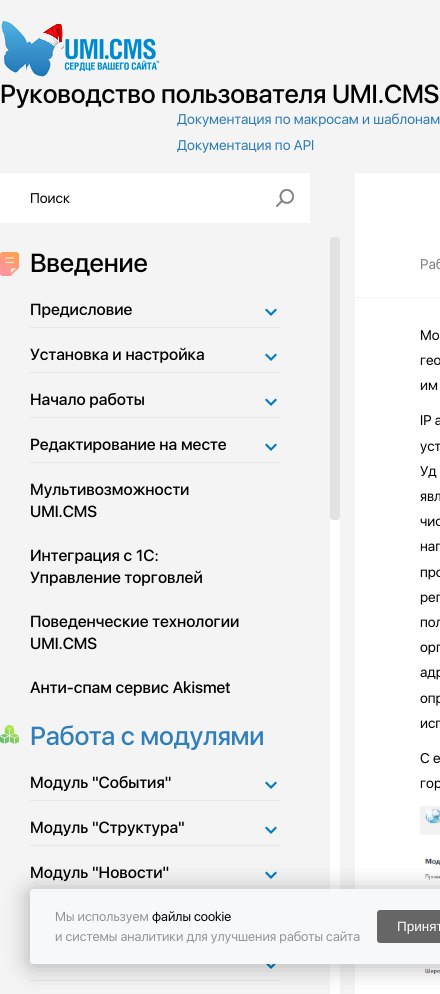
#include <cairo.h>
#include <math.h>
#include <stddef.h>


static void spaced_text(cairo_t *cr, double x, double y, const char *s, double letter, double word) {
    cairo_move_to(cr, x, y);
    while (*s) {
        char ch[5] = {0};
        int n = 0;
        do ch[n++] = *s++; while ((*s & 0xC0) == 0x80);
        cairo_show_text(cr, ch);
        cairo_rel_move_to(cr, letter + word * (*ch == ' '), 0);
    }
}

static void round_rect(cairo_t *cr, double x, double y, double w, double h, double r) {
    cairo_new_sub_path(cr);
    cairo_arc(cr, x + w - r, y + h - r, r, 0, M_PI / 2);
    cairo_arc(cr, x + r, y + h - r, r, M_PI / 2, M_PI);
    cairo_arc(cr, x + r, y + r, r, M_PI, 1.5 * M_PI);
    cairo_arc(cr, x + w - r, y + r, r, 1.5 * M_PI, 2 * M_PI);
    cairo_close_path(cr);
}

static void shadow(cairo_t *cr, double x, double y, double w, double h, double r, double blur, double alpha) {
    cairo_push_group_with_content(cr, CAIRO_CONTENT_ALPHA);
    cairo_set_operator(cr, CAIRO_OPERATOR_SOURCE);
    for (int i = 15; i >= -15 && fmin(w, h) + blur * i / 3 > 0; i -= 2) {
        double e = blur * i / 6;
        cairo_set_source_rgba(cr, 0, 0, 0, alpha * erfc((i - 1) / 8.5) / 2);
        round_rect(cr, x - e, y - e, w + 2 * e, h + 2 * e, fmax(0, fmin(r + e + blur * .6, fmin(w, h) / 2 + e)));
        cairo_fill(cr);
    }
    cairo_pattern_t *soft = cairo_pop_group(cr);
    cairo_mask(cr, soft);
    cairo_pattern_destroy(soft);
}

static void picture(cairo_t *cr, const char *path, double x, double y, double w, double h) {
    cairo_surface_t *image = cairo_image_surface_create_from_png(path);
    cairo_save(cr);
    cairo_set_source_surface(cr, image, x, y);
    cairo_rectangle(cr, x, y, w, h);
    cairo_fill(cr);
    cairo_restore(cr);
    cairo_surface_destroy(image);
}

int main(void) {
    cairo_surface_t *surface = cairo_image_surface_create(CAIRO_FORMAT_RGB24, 440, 994);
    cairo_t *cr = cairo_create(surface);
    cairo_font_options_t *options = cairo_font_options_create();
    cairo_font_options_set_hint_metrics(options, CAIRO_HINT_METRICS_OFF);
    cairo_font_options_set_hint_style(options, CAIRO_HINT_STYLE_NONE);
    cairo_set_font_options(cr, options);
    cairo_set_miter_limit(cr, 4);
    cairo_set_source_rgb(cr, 0.957, 0.957, 0.957);
    cairo_paint(cr);
    picture(cr, "img1.png", 1, 20, 159, 57);
    cairo_select_font_face(cr, "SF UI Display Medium", CAIRO_FONT_SLANT_NORMAL, CAIRO_FONT_WEIGHT_NORMAL);
    cairo_set_font_size(cr, 26);
    cairo_set_source_rgb(cr, 0, 0, 0);
    spaced_text(cr, 0, 103, "Руководство пользователя UMI.CMS", -0.25, 0);
    cairo_select_font_face(cr, "SF UI Display", CAIRO_FONT_SLANT_NORMAL, CAIRO_FONT_WEIGHT_NORMAL);
    cairo_set_font_size(cr, 14);
    cairo_set_source_rgb(cr, 0.161, 0.478, 0.71);
    cairo_move_to(cr, 177, 124);
    cairo_show_text(cr, "Документация по макросам и шаблонам");
    cairo_move_to(cr, 177, 150);
    cairo_show_text(cr, "Документация по API");
    cairo_set_source_rgb(cr, 1, 1, 1);
    cairo_rectangle(cr, 0, 173, 310, 50);
    cairo_fill(cr);
    cairo_set_source_rgb(cr, 0, 0, 0);
    cairo_move_to(cr, 30, 203);
    cairo_show_text(cr, "Поиск");
    picture(cr, "img2.png", 276, 189, 18, 18);
    picture(cr, "img3.png", 0, 252, 19, 24);
    cairo_select_font_face(cr, "SF UI Display Medium", CAIRO_FONT_SLANT_NORMAL, CAIRO_FONT_WEIGHT_NORMAL);
    cairo_set_font_size(cr, 26);
    spaced_text(cr, 30, 272, "Введение", -0.25, 0);
    cairo_set_source_rgb(cr, 0.902, 0.902, 0.902);
    cairo_rectangle(cr, 30, 327, 250, 1);
    cairo_fill(cr);
    cairo_set_font_size(cr, 16);
    cairo_set_source_rgb(cr, 0, 0, 0);
    cairo_move_to(cr, 30, 315);
    cairo_show_text(cr, "Предисловие");
    picture(cr, "img4.png", 265, 308, 12, 8);
    cairo_set_source_rgb(cr, 0.902, 0.902, 0.902);
    cairo_rectangle(cr, 30, 372, 250, 1);
    cairo_fill(cr);
    cairo_set_source_rgb(cr, 0, 0, 0);
    cairo_move_to(cr, 30, 360);
    cairo_show_text(cr, "Установка и настройка");
    picture(cr, "img4.png", 265, 353, 12, 8);
    cairo_set_source_rgb(cr, 0.902, 0.902, 0.902);
    cairo_rectangle(cr, 30, 417, 250, 1);
    cairo_fill(cr);
    cairo_set_source_rgb(cr, 0, 0, 0);
    cairo_move_to(cr, 30, 405);
    cairo_show_text(cr, "Начало работы");
    picture(cr, "img4.png", 265, 398, 12, 8);
    cairo_set_source_rgb(cr, 0.902, 0.902, 0.902);
    cairo_rectangle(cr, 30, 462, 250, 1);
    cairo_fill(cr);
    cairo_set_source_rgb(cr, 0, 0, 0);
    cairo_move_to(cr, 30, 450);
    cairo_show_text(cr, "Редактирование на месте");
    picture(cr, "img4.png", 265, 443, 12, 8);
    cairo_move_to(cr, 30, 495);
    cairo_show_text(cr, "Мультивозможности");
    cairo_move_to(cr, 30, 517);
    cairo_show_text(cr, "UMI.CMS");
    cairo_move_to(cr, 30, 561);
    cairo_show_text(cr, "Интеграция с 1С:");
    cairo_move_to(cr, 30, 583);
    cairo_show_text(cr, "Управление торговлей");
    cairo_move_to(cr, 30, 627);
    cairo_show_text(cr, "Поведенческие технологии");
    cairo_move_to(cr, 30, 649);
    cairo_show_text(cr, "UMI.CMS");
    cairo_move_to(cr, 30, 693);
    cairo_show_text(cr, "Анти-спам сервис Akismet");
    picture(cr, "img5.png", 0, 725, 19, 19);
    cairo_set_font_size(cr, 26);
    cairo_set_source_rgb(cr, 0.192, 0.498, 0.729);
    spaced_text(cr, 30, 745, "Работа с модулями", -0.25, 0);
    cairo_set_source_rgb(cr, 0.902, 0.902, 0.902);
    cairo_rectangle(cr, 30, 800, 250, 1);
    cairo_fill(cr);
    cairo_set_font_size(cr, 16);
    cairo_set_source_rgb(cr, 0, 0, 0);
    cairo_move_to(cr, 30, 788);
    cairo_show_text(cr, "Модуль \"События\"");
    picture(cr, "img4.png", 265, 781, 12, 8);
    cairo_set_source_rgb(cr, 0.902, 0.902, 0.902);
    cairo_rectangle(cr, 30, 845, 250, 1);
    cairo_fill(cr);
    cairo_set_source_rgb(cr, 0, 0, 0);
    cairo_move_to(cr, 30, 833);
    cairo_show_text(cr, "Модуль \"Структура\"");
    picture(cr, "img4.png", 265, 826, 12, 8);
    cairo_set_source_rgb(cr, 0.902, 0.902, 0.902);
    cairo_rectangle(cr, 30, 890, 1, 1);
    cairo_fill(cr);
    cairo_set_source_rgb(cr, 0, 0, 0);
    cairo_move_to(cr, 30, 878);
    cairo_show_text(cr, "Модуль \"Новости\"");
    picture(cr, "img4.png", 265, 871, 12, 8);
    picture(cr, "img6.png", 266, 964, 10, 5);
    cairo_set_source_rgb(cr, 0.902, 0.902, 0.902);
    cairo_rectangle(cr, 30, 980, 250, 1);
    cairo_fill(cr);
    cairo_set_source_rgb(cr, 1, 1, 1);
    round_rect(cr, 330, 237, 10, 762, 5);
    cairo_fill(cr);
    cairo_set_source_rgb(cr, 0.886, 0.886, 0.886);
    round_rect(cr, 330, 237, 10, 283, 3);
    cairo_fill(cr);
    cairo_set_source_rgb(cr, 1, 1, 1);
    cairo_rectangle(cr, 355, 173, 85, 821);
    cairo_fill(cr);
    cairo_set_source_rgb(cr, 0.957, 0.957, 0.957);
    cairo_rectangle(cr, 355, 297, 85, 1);
    cairo_fill(cr);
    cairo_select_font_face(cr, "SF UI Display", CAIRO_FONT_SLANT_NORMAL, CAIRO_FONT_WEIGHT_NORMAL);
    cairo_set_font_size(cr, 14);
    cairo_set_source_rgb(cr, 0.502, 0.502, 0.502);
    cairo_move_to(cr, 420, 269);
    cairo_show_text(cr, "Раб");
    cairo_set_source_rgb(cr, 0, 0, 0);
    cairo_move_to(cr, 420, 340);
    cairo_show_text(cr, "Мо");
    cairo_move_to(cr, 420, 365);
    cairo_show_text(cr, "гео");
    cairo_move_to(cr, 420, 390);
    cairo_show_text(cr, "им");
    cairo_move_to(cr, 420, 425);
    cairo_show_text(cr, "IP а");
    cairo_move_to(cr, 420, 451);
    cairo_show_text(cr, "уст");
    cairo_move_to(cr, 420, 476);
    cairo_show_text(cr, "Уд");
    cairo_move_to(cr, 420, 501);
    cairo_show_text(cr, "явл");
    cairo_move_to(cr, 420, 526);
    cairo_show_text(cr, "чис");
    cairo_move_to(cr, 420, 551);
    cairo_show_text(cr, "нап");
    cairo_move_to(cr, 420, 577);
    cairo_show_text(cr, "про");
    cairo_move_to(cr, 420, 602);
    cairo_show_text(cr, "рег");
    cairo_move_to(cr, 420, 627);
    cairo_show_text(cr, "пол");
    cairo_move_to(cr, 420, 652);
    cairo_show_text(cr, "орг");
    cairo_move_to(cr, 420, 677);
    cairo_show_text(cr, "адр");
    cairo_move_to(cr, 420, 703);
    cairo_show_text(cr, "опр");
    cairo_move_to(cr, 420, 728);
    cairo_show_text(cr, "исп");
    cairo_move_to(cr, 420, 763);
    cairo_show_text(cr, "С е");
    cairo_move_to(cr, 420, 788);
    cairo_show_text(cr, "гор");
    picture(cr, "img7.png", 420, 806, 20, 168);
    cairo_set_source_rgb(cr, 0, 0, 0);
    shadow(cr, 30, 891, 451, 75, 3, 12.5, 0.3);
    cairo_set_source_rgb(cr, 0.965, 0.969, 0.973);
    round_rect(cr, 30, 889, 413, 75, 3);
    cairo_fill(cr);
    cairo_set_font_size(cr, 13);
    cairo_set_source_rgb(cr, 0.576, 0.576, 0.576);
    cairo_move_to(cr, 55, 921);
    cairo_show_text(cr, "Мы используем");
    cairo_set_source_rgb(cr, 0, 0, 0);
    cairo_move_to(cr, 152, 921);
    cairo_show_text(cr, "файлы cookie");
    cairo_set_source_rgb(cr, 0.576, 0.576, 0.576);
    cairo_move_to(cr, 55, 941);
    cairo_show_text(cr, "и системы аналитики для улучшения работы сайта");
    cairo_set_source_rgb(cr, 0.4, 0.4, 0.4);
    round_rect(cr, 377, 910, 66, 33, 3);
    cairo_fill(cr);
    cairo_select_font_face(cr, "Liberation Sans", CAIRO_FONT_SLANT_NORMAL, CAIRO_FONT_WEIGHT_NORMAL);
    cairo_set_font_size(cr, 13.5);
    cairo_set_source_rgb(cr, 1, 1, 1);
    cairo_move_to(cr, 397, 931);
    cairo_show_text(cr, "Принят");
    cairo_surface_write_to_png(surface, "page.png");
    cairo_font_options_destroy(options);
    cairo_destroy(cr);
    cairo_surface_destroy(surface);
    return 0;
}
